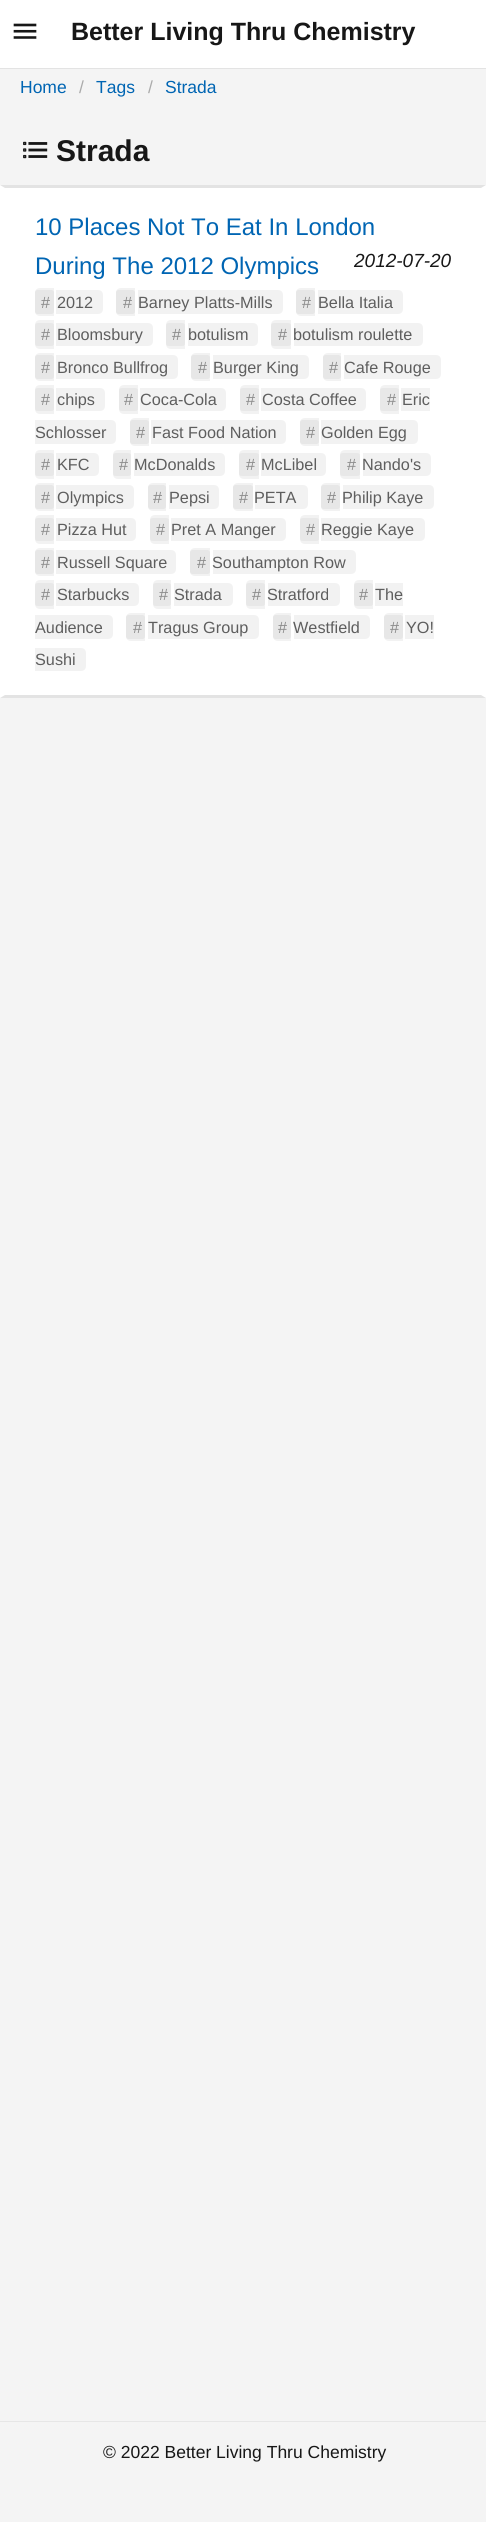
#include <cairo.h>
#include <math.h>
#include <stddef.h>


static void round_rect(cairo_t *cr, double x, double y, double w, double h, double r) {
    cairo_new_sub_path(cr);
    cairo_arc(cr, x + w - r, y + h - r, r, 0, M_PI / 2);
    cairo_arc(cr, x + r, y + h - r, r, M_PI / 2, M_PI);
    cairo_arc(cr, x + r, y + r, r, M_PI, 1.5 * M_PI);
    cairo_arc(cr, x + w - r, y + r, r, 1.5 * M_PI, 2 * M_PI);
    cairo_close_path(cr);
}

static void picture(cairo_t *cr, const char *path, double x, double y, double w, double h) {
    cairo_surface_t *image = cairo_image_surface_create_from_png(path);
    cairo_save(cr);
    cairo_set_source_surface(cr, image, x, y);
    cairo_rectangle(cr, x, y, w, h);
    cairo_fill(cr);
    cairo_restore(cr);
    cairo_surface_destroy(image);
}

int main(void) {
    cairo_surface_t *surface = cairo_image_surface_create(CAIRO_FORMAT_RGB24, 486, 2522);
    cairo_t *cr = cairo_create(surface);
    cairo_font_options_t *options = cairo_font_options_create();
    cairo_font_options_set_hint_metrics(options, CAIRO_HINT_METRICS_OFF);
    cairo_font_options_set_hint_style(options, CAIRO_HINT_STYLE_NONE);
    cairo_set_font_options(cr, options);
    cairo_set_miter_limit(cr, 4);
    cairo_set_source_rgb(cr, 0.957, 0.957, 0.957);
    cairo_paint(cr);
    cairo_set_source_rgb(cr, 1, 1, 1);
    cairo_rectangle(cr, 0, 0, 486, 68);
    cairo_fill(cr);
    cairo_set_source_rgb(cr, 0.89, 0.89, 0.89);
    cairo_rectangle(cr, 0, 68, 486, 1);
    cairo_fill(cr);
    picture(cr, "img1.png", 13, 23, 24, 16);
    cairo_select_font_face(cr, "Liberation Sans", CAIRO_FONT_SLANT_NORMAL, CAIRO_FONT_WEIGHT_BOLD);
    cairo_set_font_size(cr, 25);
    cairo_set_source_rgb(cr, 0.09, 0.09, 0.09);
    cairo_move_to(cr, 71, 40);
    cairo_show_text(cr, "Better Living Thru Chemistry");
    cairo_select_font_face(cr, "Liberation Sans", CAIRO_FONT_SLANT_NORMAL, CAIRO_FONT_WEIGHT_NORMAL);
    cairo_set_font_size(cr, 17.5);
    cairo_set_source_rgb(cr, 0, 0.396, 0.702);
    cairo_move_to(cr, 20, 93);
    cairo_show_text(cr, "Home");
    cairo_set_source_rgb(cr, 0.671, 0.671, 0.671);
    cairo_move_to(cr, 79, 93);
    cairo_show_text(cr, "/");
    cairo_set_source_rgb(cr, 0, 0.396, 0.702);
    cairo_move_to(cr, 96, 93);
    cairo_show_text(cr, "Tags");
    cairo_set_source_rgb(cr, 0.671, 0.671, 0.671);
    cairo_move_to(cr, 148, 93);
    cairo_show_text(cr, "/");
    cairo_set_source_rgb(cr, 0, 0.396, 0.702);
    cairo_move_to(cr, 165, 93);
    cairo_show_text(cr, "Strada");
    picture(cr, "img2.png", 23, 141, 25, 18);
    cairo_select_font_face(cr, "Liberation Sans", CAIRO_FONT_SLANT_NORMAL, CAIRO_FONT_WEIGHT_BOLD);
    cairo_set_font_size(cr, 30);
    cairo_set_source_rgb(cr, 0.09, 0.09, 0.09);
    cairo_move_to(cr, 56, 161);
    cairo_show_text(cr, "Strada");
    cairo_set_source_rgb(cr, 1, 1, 1);
    cairo_rectangle(cr, 0, 185, 486, 513);
    cairo_fill(cr);
    cairo_set_source_rgb(cr, 0.89, 0.89, 0.89);
    cairo_new_path(cr);
    cairo_move_to(cr, 0, 185);
    cairo_line_to(cr, 486, 185);
    cairo_line_to(cr, 481, 188);
    cairo_line_to(cr, 5, 188);
    cairo_close_path(cr);
    cairo_fill(cr);
    cairo_new_path(cr);
    cairo_move_to(cr, 486, 698);
    cairo_line_to(cr, 0, 698);
    cairo_line_to(cr, 5, 695);
    cairo_line_to(cr, 481, 695);
    cairo_close_path(cr);
    cairo_fill(cr);
    cairo_select_font_face(cr, "Liberation Sans", CAIRO_FONT_SLANT_NORMAL, CAIRO_FONT_WEIGHT_NORMAL);
    cairo_set_font_size(cr, 24);
    cairo_set_source_rgb(cr, 0, 0.396, 0.702);
    cairo_move_to(cr, 35, 235);
    cairo_show_text(cr, "10 Places Not To Eat In London");
    cairo_move_to(cr, 35, 274);
    cairo_show_text(cr, "During The 2012 Olympics");
    cairo_select_font_face(cr, "Liberation Sans", CAIRO_FONT_SLANT_ITALIC, CAIRO_FONT_WEIGHT_NORMAL);
    cairo_set_font_size(cr, 19);
    cairo_set_source_rgb(cr, 0.09, 0.09, 0.09);
    cairo_move_to(cr, 354, 267);
    cairo_show_text(cr, "2012-07-20");
    cairo_set_source_rgb(cr, 0.949, 0.949, 0.949);
    cairo_new_path(cr);
    cairo_move_to(cr, 40, 288);
    cairo_line_to(cr, 54, 288);
    cairo_line_to(cr, 54, 316);
    cairo_line_to(cr, 40, 316);
    cairo_curve_to(cr, 37, 316, 35, 314, 35, 311);
    cairo_line_to(cr, 35, 293);
    cairo_curve_to(cr, 35, 290, 37, 288, 40, 288);
    cairo_close_path(cr);
    cairo_fill(cr);
    cairo_set_source_rgba(cr, 0.89, 0.89, 0.89, 0.7);
    round_rect(cr, 35, 290, 19, 24, 2.5);
    cairo_fill(cr);
    cairo_select_font_face(cr, "Liberation Sans", CAIRO_FONT_SLANT_NORMAL, CAIRO_FONT_WEIGHT_NORMAL);
    cairo_set_font_size(cr, 16.25);
    cairo_set_source_rgb(cr, 0.541, 0.541, 0.541);
    cairo_move_to(cr, 41, 308);
    cairo_show_text(cr, "#");
    cairo_set_source_rgb(cr, 0.949, 0.949, 0.949);
    cairo_new_path(cr);
    cairo_move_to(cr, 56, 290);
    cairo_line_to(cr, 98, 290);
    cairo_curve_to(cr, 101, 290, 103, 292, 103, 295);
    cairo_line_to(cr, 103, 309);
    cairo_curve_to(cr, 103, 312, 101, 314, 98, 314);
    cairo_line_to(cr, 56, 314);
    cairo_close_path(cr);
    cairo_fill(cr);
    cairo_set_source_rgb(cr, 0.369, 0.369, 0.369);
    cairo_move_to(cr, 57, 308);
    cairo_show_text(cr, "2012");
    cairo_set_source_rgb(cr, 0.949, 0.949, 0.949);
    cairo_new_path(cr);
    cairo_move_to(cr, 121, 288);
    cairo_line_to(cr, 135, 288);
    cairo_line_to(cr, 135, 316);
    cairo_line_to(cr, 121, 316);
    cairo_curve_to(cr, 118, 316, 116, 314, 116, 311);
    cairo_line_to(cr, 116, 293);
    cairo_curve_to(cr, 116, 290, 118, 288, 121, 288);
    cairo_close_path(cr);
    cairo_fill(cr);
    cairo_set_source_rgba(cr, 0.89, 0.89, 0.89, 0.7);
    round_rect(cr, 116, 290, 19, 24, 2.5);
    cairo_fill(cr);
    cairo_set_source_rgb(cr, 0.541, 0.541, 0.541);
    cairo_move_to(cr, 123, 308);
    cairo_show_text(cr, "#");
    cairo_set_source_rgb(cr, 0.949, 0.949, 0.949);
    cairo_new_path(cr);
    cairo_move_to(cr, 138, 290);
    cairo_line_to(cr, 278, 290);
    cairo_curve_to(cr, 281, 290, 283, 292, 283, 295);
    cairo_line_to(cr, 283, 309);
    cairo_curve_to(cr, 283, 312, 281, 314, 278, 314);
    cairo_line_to(cr, 138, 314);
    cairo_close_path(cr);
    cairo_fill(cr);
    cairo_set_source_rgb(cr, 0.369, 0.369, 0.369);
    cairo_move_to(cr, 138, 308);
    cairo_show_text(cr, "Barney Platts-Mills");
    cairo_set_source_rgb(cr, 0.949, 0.949, 0.949);
    cairo_new_path(cr);
    cairo_move_to(cr, 301, 288);
    cairo_line_to(cr, 315, 288);
    cairo_line_to(cr, 315, 316);
    cairo_line_to(cr, 301, 316);
    cairo_curve_to(cr, 298, 316, 296, 314, 296, 311);
    cairo_line_to(cr, 296, 293);
    cairo_curve_to(cr, 296, 290, 298, 288, 301, 288);
    cairo_close_path(cr);
    cairo_fill(cr);
    cairo_set_source_rgba(cr, 0.89, 0.89, 0.89, 0.7);
    round_rect(cr, 296, 290, 19, 24, 2.5);
    cairo_fill(cr);
    cairo_set_source_rgb(cr, 0.541, 0.541, 0.541);
    cairo_move_to(cr, 302, 308);
    cairo_show_text(cr, "#");
    cairo_set_source_rgb(cr, 0.949, 0.949, 0.949);
    cairo_new_path(cr);
    cairo_move_to(cr, 318, 290);
    cairo_line_to(cr, 398, 290);
    cairo_curve_to(cr, 401, 290, 403, 292, 403, 295);
    cairo_line_to(cr, 403, 309);
    cairo_curve_to(cr, 403, 312, 401, 314, 398, 314);
    cairo_line_to(cr, 318, 314);
    cairo_close_path(cr);
    cairo_fill(cr);
    cairo_set_source_rgb(cr, 0.369, 0.369, 0.369);
    cairo_move_to(cr, 318, 308);
    cairo_show_text(cr, "Bella Italia");
    cairo_set_source_rgb(cr, 0.949, 0.949, 0.949);
    cairo_new_path(cr);
    cairo_move_to(cr, 40, 320);
    cairo_line_to(cr, 54, 320);
    cairo_line_to(cr, 54, 349);
    cairo_line_to(cr, 40, 349);
    cairo_curve_to(cr, 37, 349, 35, 347, 35, 344);
    cairo_line_to(cr, 35, 325);
    cairo_curve_to(cr, 35, 322, 37, 320, 40, 320);
    cairo_close_path(cr);
    cairo_fill(cr);
    cairo_set_source_rgb(cr, 0.91, 0.91, 0.91);
    round_rect(cr, 35, 323, 19, 23, 2.5);
    cairo_fill(cr);
    cairo_set_source_rgb(cr, 0.541, 0.541, 0.541);
    cairo_move_to(cr, 41, 340);
    cairo_show_text(cr, "#");
    cairo_set_source_rgb(cr, 0.949, 0.949, 0.949);
    cairo_new_path(cr);
    cairo_move_to(cr, 56, 323);
    cairo_line_to(cr, 148, 323);
    cairo_curve_to(cr, 151, 323, 153, 325, 153, 328);
    cairo_line_to(cr, 153, 341);
    cairo_curve_to(cr, 153, 344, 151, 346, 148, 346);
    cairo_line_to(cr, 56, 346);
    cairo_close_path(cr);
    cairo_fill(cr);
    cairo_set_source_rgb(cr, 0.369, 0.369, 0.369);
    cairo_move_to(cr, 57, 340);
    cairo_show_text(cr, "Bloomsbury");
    cairo_set_source_rgb(cr, 0.949, 0.949, 0.949);
    cairo_new_path(cr);
    cairo_move_to(cr, 171, 320);
    cairo_line_to(cr, 185, 320);
    cairo_line_to(cr, 185, 349);
    cairo_line_to(cr, 171, 349);
    cairo_curve_to(cr, 168, 349, 166, 347, 166, 344);
    cairo_line_to(cr, 166, 325);
    cairo_curve_to(cr, 166, 322, 168, 320, 171, 320);
    cairo_close_path(cr);
    cairo_fill(cr);
    cairo_set_source_rgb(cr, 0.91, 0.91, 0.91);
    round_rect(cr, 166, 323, 19, 23, 2.5);
    cairo_fill(cr);
    cairo_set_source_rgb(cr, 0.541, 0.541, 0.541);
    cairo_move_to(cr, 172, 340);
    cairo_show_text(cr, "#");
    cairo_set_source_rgb(cr, 0.949, 0.949, 0.949);
    cairo_new_path(cr);
    cairo_move_to(cr, 188, 323);
    cairo_line_to(cr, 253, 323);
    cairo_curve_to(cr, 256, 323, 258, 325, 258, 328);
    cairo_line_to(cr, 258, 341);
    cairo_curve_to(cr, 258, 344, 256, 346, 253, 346);
    cairo_line_to(cr, 188, 346);
    cairo_close_path(cr);
    cairo_fill(cr);
    cairo_set_source_rgb(cr, 0.369, 0.369, 0.369);
    cairo_move_to(cr, 188, 340);
    cairo_show_text(cr, "botulism");
    cairo_set_source_rgb(cr, 0.949, 0.949, 0.949);
    cairo_new_path(cr);
    cairo_move_to(cr, 276, 320);
    cairo_line_to(cr, 291, 320);
    cairo_line_to(cr, 291, 349);
    cairo_line_to(cr, 276, 349);
    cairo_curve_to(cr, 273, 349, 271, 347, 271, 344);
    cairo_line_to(cr, 271, 325);
    cairo_curve_to(cr, 271, 322, 273, 320, 276, 320);
    cairo_close_path(cr);
    cairo_fill(cr);
    cairo_set_source_rgb(cr, 0.91, 0.91, 0.91);
    round_rect(cr, 271, 323, 20, 23, 2.5);
    cairo_fill(cr);
    cairo_set_source_rgb(cr, 0.541, 0.541, 0.541);
    cairo_move_to(cr, 278, 340);
    cairo_show_text(cr, "#");
    cairo_set_source_rgb(cr, 0.949, 0.949, 0.949);
    cairo_new_path(cr);
    cairo_move_to(cr, 294, 323);
    cairo_line_to(cr, 418, 323);
    cairo_curve_to(cr, 421, 323, 423, 325, 423, 328);
    cairo_line_to(cr, 423, 341);
    cairo_curve_to(cr, 423, 344, 421, 346, 418, 346);
    cairo_line_to(cr, 294, 346);
    cairo_close_path(cr);
    cairo_fill(cr);
    cairo_set_source_rgb(cr, 0.369, 0.369, 0.369);
    cairo_move_to(cr, 293, 340);
    cairo_show_text(cr, "botulism roulette");
    cairo_set_source_rgb(cr, 0.949, 0.949, 0.949);
    cairo_new_path(cr);
    cairo_move_to(cr, 40, 353);
    cairo_line_to(cr, 54, 353);
    cairo_line_to(cr, 54, 381);
    cairo_line_to(cr, 40, 381);
    cairo_curve_to(cr, 37, 381, 35, 379, 35, 376);
    cairo_line_to(cr, 35, 358);
    cairo_curve_to(cr, 35, 355, 37, 353, 40, 353);
    cairo_close_path(cr);
    cairo_fill(cr);
    cairo_set_source_rgba(cr, 0.89, 0.89, 0.89, 0.7);
    round_rect(cr, 35, 355, 19, 24, 2.5);
    cairo_fill(cr);
    cairo_set_source_rgb(cr, 0.541, 0.541, 0.541);
    cairo_move_to(cr, 41, 373);
    cairo_show_text(cr, "#");
    cairo_set_source_rgb(cr, 0.949, 0.949, 0.949);
    cairo_new_path(cr);
    cairo_move_to(cr, 56, 355);
    cairo_line_to(cr, 173, 355);
    cairo_curve_to(cr, 176, 355, 178, 357, 178, 360);
    cairo_line_to(cr, 178, 374);
    cairo_curve_to(cr, 178, 377, 176, 379, 173, 379);
    cairo_line_to(cr, 56, 379);
    cairo_close_path(cr);
    cairo_fill(cr);
    cairo_set_source_rgb(cr, 0.369, 0.369, 0.369);
    cairo_move_to(cr, 57, 373);
    cairo_show_text(cr, "Bronco Bullfrog");
    cairo_set_source_rgb(cr, 0.949, 0.949, 0.949);
    cairo_new_path(cr);
    cairo_move_to(cr, 196, 353);
    cairo_line_to(cr, 210, 353);
    cairo_line_to(cr, 210, 381);
    cairo_line_to(cr, 196, 381);
    cairo_curve_to(cr, 193, 381, 191, 379, 191, 376);
    cairo_line_to(cr, 191, 358);
    cairo_curve_to(cr, 191, 355, 193, 353, 196, 353);
    cairo_close_path(cr);
    cairo_fill(cr);
    cairo_set_source_rgba(cr, 0.89, 0.89, 0.89, 0.7);
    round_rect(cr, 191, 355, 19, 24, 2.5);
    cairo_fill(cr);
    cairo_set_source_rgb(cr, 0.541, 0.541, 0.541);
    cairo_move_to(cr, 198, 373);
    cairo_show_text(cr, "#");
    cairo_set_source_rgb(cr, 0.949, 0.949, 0.949);
    cairo_new_path(cr);
    cairo_move_to(cr, 213, 355);
    cairo_line_to(cr, 304, 355);
    cairo_curve_to(cr, 307, 355, 309, 357, 309, 360);
    cairo_line_to(cr, 309, 374);
    cairo_curve_to(cr, 309, 377, 307, 379, 304, 379);
    cairo_line_to(cr, 213, 379);
    cairo_close_path(cr);
    cairo_fill(cr);
    cairo_set_source_rgb(cr, 0.369, 0.369, 0.369);
    cairo_move_to(cr, 213, 373);
    cairo_show_text(cr, "Burger King");
    cairo_set_source_rgb(cr, 0.949, 0.949, 0.949);
    cairo_new_path(cr);
    cairo_move_to(cr, 328, 353);
    cairo_line_to(cr, 341, 353);
    cairo_line_to(cr, 341, 381);
    cairo_line_to(cr, 328, 381);
    cairo_curve_to(cr, 325, 381, 323, 379, 323, 376);
    cairo_line_to(cr, 323, 358);
    cairo_curve_to(cr, 323, 355, 325, 353, 328, 353);
    cairo_close_path(cr);
    cairo_fill(cr);
    cairo_set_source_rgba(cr, 0.89, 0.89, 0.89, 0.7);
    round_rect(cr, 323, 355, 18, 24, 2.5);
    cairo_fill(cr);
    cairo_set_source_rgb(cr, 0.541, 0.541, 0.541);
    cairo_move_to(cr, 329, 373);
    cairo_show_text(cr, "#");
    cairo_set_source_rgb(cr, 0.949, 0.949, 0.949);
    cairo_new_path(cr);
    cairo_move_to(cr, 344, 355);
    cairo_line_to(cr, 436, 355);
    cairo_curve_to(cr, 439, 355, 441, 357, 441, 360);
    cairo_line_to(cr, 441, 374);
    cairo_curve_to(cr, 441, 377, 439, 379, 436, 379);
    cairo_line_to(cr, 344, 379);
    cairo_close_path(cr);
    cairo_fill(cr);
    cairo_set_source_rgb(cr, 0.369, 0.369, 0.369);
    cairo_move_to(cr, 344, 373);
    cairo_show_text(cr, "Cafe Rouge");
    cairo_set_source_rgb(cr, 0.949, 0.949, 0.949);
    cairo_new_path(cr);
    cairo_move_to(cr, 40, 385);
    cairo_line_to(cr, 54, 385);
    cairo_line_to(cr, 54, 414);
    cairo_line_to(cr, 40, 414);
    cairo_curve_to(cr, 37, 414, 35, 412, 35, 409);
    cairo_line_to(cr, 35, 390);
    cairo_curve_to(cr, 35, 387, 37, 385, 40, 385);
    cairo_close_path(cr);
    cairo_fill(cr);
    cairo_set_source_rgb(cr, 0.91, 0.91, 0.91);
    round_rect(cr, 35, 388, 19, 23, 2.5);
    cairo_fill(cr);
    cairo_set_source_rgb(cr, 0.541, 0.541, 0.541);
    cairo_move_to(cr, 41, 405);
    cairo_show_text(cr, "#");
    cairo_set_source_rgb(cr, 0.949, 0.949, 0.949);
    cairo_new_path(cr);
    cairo_move_to(cr, 56, 388);
    cairo_line_to(cr, 100, 388);
    cairo_curve_to(cr, 103, 388, 105, 390, 105, 393);
    cairo_line_to(cr, 105, 406);
    cairo_curve_to(cr, 105, 409, 103, 411, 100, 411);
    cairo_line_to(cr, 56, 411);
    cairo_close_path(cr);
    cairo_fill(cr);
    cairo_set_source_rgb(cr, 0.369, 0.369, 0.369);
    cairo_move_to(cr, 57, 405);
    cairo_show_text(cr, "chips");
    cairo_set_source_rgb(cr, 0.949, 0.949, 0.949);
    cairo_new_path(cr);
    cairo_move_to(cr, 124, 385);
    cairo_line_to(cr, 138, 385);
    cairo_line_to(cr, 138, 414);
    cairo_line_to(cr, 124, 414);
    cairo_curve_to(cr, 121, 414, 119, 412, 119, 409);
    cairo_line_to(cr, 119, 390);
    cairo_curve_to(cr, 119, 387, 121, 385, 124, 385);
    cairo_close_path(cr);
    cairo_fill(cr);
    cairo_set_source_rgb(cr, 0.91, 0.91, 0.91);
    round_rect(cr, 119, 388, 19, 23, 2.5);
    cairo_fill(cr);
    cairo_set_source_rgb(cr, 0.541, 0.541, 0.541);
    cairo_move_to(cr, 124, 405);
    cairo_show_text(cr, "#");
    cairo_set_source_rgb(cr, 0.949, 0.949, 0.949);
    cairo_new_path(cr);
    cairo_move_to(cr, 140, 388);
    cairo_line_to(cr, 221, 388);
    cairo_curve_to(cr, 224, 388, 226, 390, 226, 393);
    cairo_line_to(cr, 226, 406);
    cairo_curve_to(cr, 226, 409, 224, 411, 221, 411);
    cairo_line_to(cr, 140, 411);
    cairo_close_path(cr);
    cairo_fill(cr);
    cairo_set_source_rgb(cr, 0.369, 0.369, 0.369);
    cairo_move_to(cr, 140, 405);
    cairo_show_text(cr, "Coca-Cola");
    cairo_set_source_rgb(cr, 0.949, 0.949, 0.949);
    cairo_new_path(cr);
    cairo_move_to(cr, 245, 385);
    cairo_line_to(cr, 259, 385);
    cairo_line_to(cr, 259, 414);
    cairo_line_to(cr, 245, 414);
    cairo_curve_to(cr, 242, 414, 240, 412, 240, 409);
    cairo_line_to(cr, 240, 390);
    cairo_curve_to(cr, 240, 387, 242, 385, 245, 385);
    cairo_close_path(cr);
    cairo_fill(cr);
    cairo_set_source_rgb(cr, 0.91, 0.91, 0.91);
    round_rect(cr, 240, 388, 19, 23, 2.5);
    cairo_fill(cr);
    cairo_set_source_rgb(cr, 0.541, 0.541, 0.541);
    cairo_move_to(cr, 246, 405);
    cairo_show_text(cr, "#");
    cairo_set_source_rgb(cr, 0.949, 0.949, 0.949);
    cairo_new_path(cr);
    cairo_move_to(cr, 261, 388);
    cairo_line_to(cr, 361, 388);
    cairo_curve_to(cr, 364, 388, 366, 390, 366, 393);
    cairo_line_to(cr, 366, 406);
    cairo_curve_to(cr, 366, 409, 364, 411, 361, 411);
    cairo_line_to(cr, 261, 411);
    cairo_close_path(cr);
    cairo_fill(cr);
    cairo_set_source_rgb(cr, 0.369, 0.369, 0.369);
    cairo_move_to(cr, 262, 405);
    cairo_show_text(cr, "Costa Coffee");
    cairo_set_source_rgb(cr, 0.949, 0.949, 0.949);
    cairo_new_path(cr);
    cairo_move_to(cr, 385, 385);
    cairo_line_to(cr, 399, 385);
    cairo_line_to(cr, 399, 414);
    cairo_line_to(cr, 385, 414);
    cairo_curve_to(cr, 382, 414, 380, 412, 380, 409);
    cairo_line_to(cr, 380, 390);
    cairo_curve_to(cr, 380, 387, 382, 385, 385, 385);
    cairo_close_path(cr);
    cairo_fill(cr);
    cairo_set_source_rgb(cr, 0.91, 0.91, 0.91);
    round_rect(cr, 380, 388, 19, 23, 2.5);
    cairo_fill(cr);
    cairo_set_source_rgb(cr, 0.541, 0.541, 0.541);
    cairo_move_to(cr, 387, 405);
    cairo_show_text(cr, "#");
    cairo_set_source_rgb(cr, 0.949, 0.949, 0.949);
    cairo_rectangle(cr, 401, 388, 29, 23);
    cairo_fill(cr);
    cairo_set_source_rgb(cr, 0.369, 0.369, 0.369);
    cairo_move_to(cr, 402, 405);
    cairo_show_text(cr, "Eric");
    cairo_set_source_rgb(cr, 0.949, 0.949, 0.949);
    cairo_new_path(cr);
    cairo_move_to(cr, 35, 420);
    cairo_line_to(cr, 111, 420);
    cairo_curve_to(cr, 114, 420, 116, 422, 116, 425);
    cairo_line_to(cr, 116, 439);
    cairo_curve_to(cr, 116, 442, 114, 444, 111, 444);
    cairo_line_to(cr, 35, 444);
    cairo_close_path(cr);
    cairo_fill(cr);
    cairo_set_source_rgb(cr, 0.369, 0.369, 0.369);
    cairo_move_to(cr, 35, 438);
    cairo_show_text(cr, "Schlosser");
    cairo_set_source_rgb(cr, 0.949, 0.949, 0.949);
    cairo_new_path(cr);
    cairo_move_to(cr, 135, 418);
    cairo_line_to(cr, 149, 418);
    cairo_line_to(cr, 149, 446);
    cairo_line_to(cr, 135, 446);
    cairo_curve_to(cr, 132, 446, 130, 444, 130, 441);
    cairo_line_to(cr, 130, 423);
    cairo_curve_to(cr, 130, 420, 132, 418, 135, 418);
    cairo_close_path(cr);
    cairo_fill(cr);
    cairo_set_source_rgba(cr, 0.89, 0.89, 0.89, 0.7);
    round_rect(cr, 130, 420, 19, 24, 2.5);
    cairo_fill(cr);
    cairo_set_source_rgb(cr, 0.541, 0.541, 0.541);
    cairo_move_to(cr, 136, 438);
    cairo_show_text(cr, "#");
    cairo_set_source_rgb(cr, 0.949, 0.949, 0.949);
    cairo_new_path(cr);
    cairo_move_to(cr, 151, 420);
    cairo_line_to(cr, 281, 420);
    cairo_curve_to(cr, 284, 420, 286, 422, 286, 425);
    cairo_line_to(cr, 286, 439);
    cairo_curve_to(cr, 286, 442, 284, 444, 281, 444);
    cairo_line_to(cr, 151, 444);
    cairo_close_path(cr);
    cairo_fill(cr);
    cairo_set_source_rgb(cr, 0.369, 0.369, 0.369);
    cairo_move_to(cr, 152, 438);
    cairo_show_text(cr, "Fast Food Nation");
    cairo_set_source_rgb(cr, 0.949, 0.949, 0.949);
    cairo_new_path(cr);
    cairo_move_to(cr, 305, 418);
    cairo_line_to(cr, 319, 418);
    cairo_line_to(cr, 319, 446);
    cairo_line_to(cr, 305, 446);
    cairo_curve_to(cr, 302, 446, 300, 444, 300, 441);
    cairo_line_to(cr, 300, 423);
    cairo_curve_to(cr, 300, 420, 302, 418, 305, 418);
    cairo_close_path(cr);
    cairo_fill(cr);
    cairo_set_source_rgba(cr, 0.89, 0.89, 0.89, 0.7);
    round_rect(cr, 300, 420, 19, 24, 2.5);
    cairo_fill(cr);
    cairo_set_source_rgb(cr, 0.541, 0.541, 0.541);
    cairo_move_to(cr, 306, 438);
    cairo_show_text(cr, "#");
    cairo_set_source_rgb(cr, 0.949, 0.949, 0.949);
    cairo_new_path(cr);
    cairo_move_to(cr, 321, 420);
    cairo_line_to(cr, 413, 420);
    cairo_curve_to(cr, 416, 420, 418, 422, 418, 425);
    cairo_line_to(cr, 418, 439);
    cairo_curve_to(cr, 418, 442, 416, 444, 413, 444);
    cairo_line_to(cr, 321, 444);
    cairo_close_path(cr);
    cairo_fill(cr);
    cairo_set_source_rgb(cr, 0.369, 0.369, 0.369);
    cairo_move_to(cr, 321, 438);
    cairo_show_text(cr, "Golden Egg");
    cairo_set_source_rgb(cr, 0.949, 0.949, 0.949);
    cairo_new_path(cr);
    cairo_move_to(cr, 40, 450);
    cairo_line_to(cr, 54, 450);
    cairo_line_to(cr, 54, 479);
    cairo_line_to(cr, 40, 479);
    cairo_curve_to(cr, 37, 479, 35, 477, 35, 474);
    cairo_line_to(cr, 35, 455);
    cairo_curve_to(cr, 35, 452, 37, 450, 40, 450);
    cairo_close_path(cr);
    cairo_fill(cr);
    cairo_set_source_rgb(cr, 0.91, 0.91, 0.91);
    round_rect(cr, 35, 453, 19, 23, 2.5);
    cairo_fill(cr);
    cairo_set_source_rgb(cr, 0.541, 0.541, 0.541);
    cairo_move_to(cr, 41, 470);
    cairo_show_text(cr, "#");
    cairo_set_source_rgb(cr, 0.949, 0.949, 0.949);
    cairo_new_path(cr);
    cairo_move_to(cr, 56, 453);
    cairo_line_to(cr, 94, 453);
    cairo_curve_to(cr, 97, 453, 99, 455, 99, 458);
    cairo_line_to(cr, 99, 471);
    cairo_curve_to(cr, 99, 474, 97, 476, 94, 476);
    cairo_line_to(cr, 56, 476);
    cairo_close_path(cr);
    cairo_fill(cr);
    cairo_set_source_rgb(cr, 0.369, 0.369, 0.369);
    cairo_move_to(cr, 57, 470);
    cairo_show_text(cr, "KFC");
    cairo_set_source_rgb(cr, 0.949, 0.949, 0.949);
    cairo_new_path(cr);
    cairo_move_to(cr, 118, 450);
    cairo_line_to(cr, 131, 450);
    cairo_line_to(cr, 131, 479);
    cairo_line_to(cr, 118, 479);
    cairo_curve_to(cr, 115, 479, 113, 477, 113, 474);
    cairo_line_to(cr, 113, 455);
    cairo_curve_to(cr, 113, 452, 115, 450, 118, 450);
    cairo_close_path(cr);
    cairo_fill(cr);
    cairo_set_source_rgb(cr, 0.91, 0.91, 0.91);
    round_rect(cr, 113, 453, 18, 23, 2.5);
    cairo_fill(cr);
    cairo_set_source_rgb(cr, 0.541, 0.541, 0.541);
    cairo_move_to(cr, 119, 470);
    cairo_show_text(cr, "#");
    cairo_set_source_rgb(cr, 0.949, 0.949, 0.949);
    cairo_new_path(cr);
    cairo_move_to(cr, 134, 453);
    cairo_line_to(cr, 220, 453);
    cairo_curve_to(cr, 223, 453, 225, 455, 225, 458);
    cairo_line_to(cr, 225, 471);
    cairo_curve_to(cr, 225, 474, 223, 476, 220, 476);
    cairo_line_to(cr, 134, 476);
    cairo_close_path(cr);
    cairo_fill(cr);
    cairo_set_source_rgb(cr, 0.369, 0.369, 0.369);
    cairo_move_to(cr, 134, 470);
    cairo_show_text(cr, "McDonalds");
    cairo_set_source_rgb(cr, 0.949, 0.949, 0.949);
    cairo_new_path(cr);
    cairo_move_to(cr, 244, 450);
    cairo_line_to(cr, 259, 450);
    cairo_line_to(cr, 259, 479);
    cairo_line_to(cr, 244, 479);
    cairo_curve_to(cr, 241, 479, 239, 477, 239, 474);
    cairo_line_to(cr, 239, 455);
    cairo_curve_to(cr, 239, 452, 241, 450, 244, 450);
    cairo_close_path(cr);
    cairo_fill(cr);
    cairo_set_source_rgb(cr, 0.91, 0.91, 0.91);
    round_rect(cr, 239, 453, 20, 23, 2.5);
    cairo_fill(cr);
    cairo_set_source_rgb(cr, 0.541, 0.541, 0.541);
    cairo_move_to(cr, 246, 470);
    cairo_show_text(cr, "#");
    cairo_set_source_rgb(cr, 0.949, 0.949, 0.949);
    cairo_new_path(cr);
    cairo_move_to(cr, 261, 453);
    cairo_line_to(cr, 321, 453);
    cairo_curve_to(cr, 324, 453, 326, 455, 326, 458);
    cairo_line_to(cr, 326, 471);
    cairo_curve_to(cr, 326, 474, 324, 476, 321, 476);
    cairo_line_to(cr, 261, 476);
    cairo_close_path(cr);
    cairo_fill(cr);
    cairo_set_source_rgb(cr, 0.369, 0.369, 0.369);
    cairo_move_to(cr, 261, 470);
    cairo_show_text(cr, "McLibel");
    cairo_set_source_rgb(cr, 0.949, 0.949, 0.949);
    cairo_new_path(cr);
    cairo_move_to(cr, 345, 450);
    cairo_line_to(cr, 360, 450);
    cairo_line_to(cr, 360, 479);
    cairo_line_to(cr, 345, 479);
    cairo_curve_to(cr, 342, 479, 340, 477, 340, 474);
    cairo_line_to(cr, 340, 455);
    cairo_curve_to(cr, 340, 452, 342, 450, 345, 450);
    cairo_close_path(cr);
    cairo_fill(cr);
    cairo_set_source_rgb(cr, 0.91, 0.91, 0.91);
    round_rect(cr, 340, 453, 20, 23, 2.5);
    cairo_fill(cr);
    cairo_set_source_rgb(cr, 0.541, 0.541, 0.541);
    cairo_move_to(cr, 347, 470);
    cairo_show_text(cr, "#");
    cairo_set_source_rgb(cr, 0.949, 0.949, 0.949);
    cairo_new_path(cr);
    cairo_move_to(cr, 363, 453);
    cairo_line_to(cr, 426, 453);
    cairo_curve_to(cr, 429, 453, 431, 455, 431, 458);
    cairo_line_to(cr, 431, 471);
    cairo_curve_to(cr, 431, 474, 429, 476, 426, 476);
    cairo_line_to(cr, 363, 476);
    cairo_close_path(cr);
    cairo_fill(cr);
    cairo_set_source_rgb(cr, 0.369, 0.369, 0.369);
    cairo_move_to(cr, 362, 470);
    cairo_show_text(cr, "Nando's");
    cairo_set_source_rgb(cr, 0.949, 0.949, 0.949);
    cairo_new_path(cr);
    cairo_move_to(cr, 40, 483);
    cairo_line_to(cr, 54, 483);
    cairo_line_to(cr, 54, 511);
    cairo_line_to(cr, 40, 511);
    cairo_curve_to(cr, 37, 511, 35, 509, 35, 506);
    cairo_line_to(cr, 35, 488);
    cairo_curve_to(cr, 35, 485, 37, 483, 40, 483);
    cairo_close_path(cr);
    cairo_fill(cr);
    cairo_set_source_rgba(cr, 0.89, 0.89, 0.89, 0.7);
    round_rect(cr, 35, 485, 19, 24, 2.5);
    cairo_fill(cr);
    cairo_set_source_rgb(cr, 0.541, 0.541, 0.541);
    cairo_move_to(cr, 41, 503);
    cairo_show_text(cr, "#");
    cairo_set_source_rgb(cr, 0.949, 0.949, 0.949);
    cairo_new_path(cr);
    cairo_move_to(cr, 56, 485);
    cairo_line_to(cr, 129, 485);
    cairo_curve_to(cr, 132, 485, 134, 487, 134, 490);
    cairo_line_to(cr, 134, 504);
    cairo_curve_to(cr, 134, 507, 132, 509, 129, 509);
    cairo_line_to(cr, 56, 509);
    cairo_close_path(cr);
    cairo_fill(cr);
    cairo_set_source_rgb(cr, 0.369, 0.369, 0.369);
    cairo_move_to(cr, 57, 503);
    cairo_show_text(cr, "Olympics");
    cairo_set_source_rgb(cr, 0.949, 0.949, 0.949);
    cairo_new_path(cr);
    cairo_move_to(cr, 153, 483);
    cairo_line_to(cr, 166, 483);
    cairo_line_to(cr, 166, 511);
    cairo_line_to(cr, 153, 511);
    cairo_curve_to(cr, 150, 511, 148, 509, 148, 506);
    cairo_line_to(cr, 148, 488);
    cairo_curve_to(cr, 148, 485, 150, 483, 153, 483);
    cairo_close_path(cr);
    cairo_fill(cr);
    cairo_set_source_rgba(cr, 0.89, 0.89, 0.89, 0.7);
    round_rect(cr, 148, 485, 18, 24, 2.5);
    cairo_fill(cr);
    cairo_set_source_rgb(cr, 0.541, 0.541, 0.541);
    cairo_move_to(cr, 153, 503);
    cairo_show_text(cr, "#");
    cairo_set_source_rgb(cr, 0.949, 0.949, 0.949);
    cairo_new_path(cr);
    cairo_move_to(cr, 169, 485);
    cairo_line_to(cr, 214, 485);
    cairo_curve_to(cr, 217, 485, 219, 487, 219, 490);
    cairo_line_to(cr, 219, 504);
    cairo_curve_to(cr, 219, 507, 217, 509, 214, 509);
    cairo_line_to(cr, 169, 509);
    cairo_close_path(cr);
    cairo_fill(cr);
    cairo_set_source_rgb(cr, 0.369, 0.369, 0.369);
    cairo_move_to(cr, 169, 503);
    cairo_show_text(cr, "Pepsi");
    cairo_set_source_rgb(cr, 0.949, 0.949, 0.949);
    cairo_new_path(cr);
    cairo_move_to(cr, 238, 483);
    cairo_line_to(cr, 253, 483);
    cairo_line_to(cr, 253, 511);
    cairo_line_to(cr, 238, 511);
    cairo_curve_to(cr, 235, 511, 233, 509, 233, 506);
    cairo_line_to(cr, 233, 488);
    cairo_curve_to(cr, 233, 485, 235, 483, 238, 483);
    cairo_close_path(cr);
    cairo_fill(cr);
    cairo_set_source_rgba(cr, 0.89, 0.89, 0.89, 0.7);
    round_rect(cr, 233, 485, 20, 24, 2.5);
    cairo_fill(cr);
    cairo_set_source_rgb(cr, 0.541, 0.541, 0.541);
    cairo_move_to(cr, 239, 503);
    cairo_show_text(cr, "#");
    cairo_set_source_rgb(cr, 0.949, 0.949, 0.949);
    cairo_new_path(cr);
    cairo_move_to(cr, 255, 485);
    cairo_line_to(cr, 303, 485);
    cairo_curve_to(cr, 306, 485, 308, 487, 308, 490);
    cairo_line_to(cr, 308, 504);
    cairo_curve_to(cr, 308, 507, 306, 509, 303, 509);
    cairo_line_to(cr, 255, 509);
    cairo_close_path(cr);
    cairo_fill(cr);
    cairo_set_source_rgb(cr, 0.369, 0.369, 0.369);
    cairo_move_to(cr, 254, 503);
    cairo_show_text(cr, "PETA");
    cairo_set_source_rgb(cr, 0.949, 0.949, 0.949);
    cairo_new_path(cr);
    cairo_move_to(cr, 326, 483);
    cairo_line_to(cr, 340, 483);
    cairo_line_to(cr, 340, 511);
    cairo_line_to(cr, 326, 511);
    cairo_curve_to(cr, 323, 511, 321, 509, 321, 506);
    cairo_line_to(cr, 321, 488);
    cairo_curve_to(cr, 321, 485, 323, 483, 326, 483);
    cairo_close_path(cr);
    cairo_fill(cr);
    cairo_set_source_rgba(cr, 0.89, 0.89, 0.89, 0.7);
    round_rect(cr, 321, 485, 19, 24, 2.5);
    cairo_fill(cr);
    cairo_set_source_rgb(cr, 0.541, 0.541, 0.541);
    cairo_move_to(cr, 327, 503);
    cairo_show_text(cr, "#");
    cairo_set_source_rgb(cr, 0.949, 0.949, 0.949);
    cairo_new_path(cr);
    cairo_move_to(cr, 343, 485);
    cairo_line_to(cr, 429, 485);
    cairo_curve_to(cr, 432, 485, 434, 487, 434, 490);
    cairo_line_to(cr, 434, 504);
    cairo_curve_to(cr, 434, 507, 432, 509, 429, 509);
    cairo_line_to(cr, 343, 509);
    cairo_close_path(cr);
    cairo_fill(cr);
    cairo_set_source_rgb(cr, 0.369, 0.369, 0.369);
    cairo_move_to(cr, 342, 503);
    cairo_show_text(cr, "Philip Kaye");
    cairo_set_source_rgb(cr, 0.949, 0.949, 0.949);
    cairo_new_path(cr);
    cairo_move_to(cr, 40, 515);
    cairo_line_to(cr, 54, 515);
    cairo_line_to(cr, 54, 544);
    cairo_line_to(cr, 40, 544);
    cairo_curve_to(cr, 37, 544, 35, 542, 35, 539);
    cairo_line_to(cr, 35, 520);
    cairo_curve_to(cr, 35, 517, 37, 515, 40, 515);
    cairo_close_path(cr);
    cairo_fill(cr);
    cairo_set_source_rgb(cr, 0.91, 0.91, 0.91);
    round_rect(cr, 35, 518, 19, 23, 2.5);
    cairo_fill(cr);
    cairo_set_source_rgb(cr, 0.541, 0.541, 0.541);
    cairo_move_to(cr, 41, 535);
    cairo_show_text(cr, "#");
    cairo_set_source_rgb(cr, 0.949, 0.949, 0.949);
    cairo_new_path(cr);
    cairo_move_to(cr, 56, 518);
    cairo_line_to(cr, 131, 518);
    cairo_curve_to(cr, 134, 518, 136, 520, 136, 523);
    cairo_line_to(cr, 136, 536);
    cairo_curve_to(cr, 136, 539, 134, 541, 131, 541);
    cairo_line_to(cr, 56, 541);
    cairo_close_path(cr);
    cairo_fill(cr);
    cairo_set_source_rgb(cr, 0.369, 0.369, 0.369);
    cairo_move_to(cr, 57, 535);
    cairo_show_text(cr, "Pizza Hut");
    cairo_set_source_rgb(cr, 0.949, 0.949, 0.949);
    cairo_new_path(cr);
    cairo_move_to(cr, 155, 515);
    cairo_line_to(cr, 169, 515);
    cairo_line_to(cr, 169, 544);
    cairo_line_to(cr, 155, 544);
    cairo_curve_to(cr, 152, 544, 150, 542, 150, 539);
    cairo_line_to(cr, 150, 520);
    cairo_curve_to(cr, 150, 517, 152, 515, 155, 515);
    cairo_close_path(cr);
    cairo_fill(cr);
    cairo_set_source_rgb(cr, 0.91, 0.91, 0.91);
    round_rect(cr, 150, 518, 19, 23, 2.5);
    cairo_fill(cr);
    cairo_set_source_rgb(cr, 0.541, 0.541, 0.541);
    cairo_move_to(cr, 156, 535);
    cairo_show_text(cr, "#");
    cairo_set_source_rgb(cr, 0.949, 0.949, 0.949);
    cairo_new_path(cr);
    cairo_move_to(cr, 171, 518);
    cairo_line_to(cr, 281, 518);
    cairo_curve_to(cr, 284, 518, 286, 520, 286, 523);
    cairo_line_to(cr, 286, 536);
    cairo_curve_to(cr, 286, 539, 284, 541, 281, 541);
    cairo_line_to(cr, 171, 541);
    cairo_close_path(cr);
    cairo_fill(cr);
    cairo_set_source_rgb(cr, 0.369, 0.369, 0.369);
    cairo_move_to(cr, 171, 535);
    cairo_show_text(cr, "Pret A Manger");
    cairo_set_source_rgb(cr, 0.949, 0.949, 0.949);
    cairo_new_path(cr);
    cairo_move_to(cr, 305, 515);
    cairo_line_to(cr, 319, 515);
    cairo_line_to(cr, 319, 544);
    cairo_line_to(cr, 305, 544);
    cairo_curve_to(cr, 302, 544, 300, 542, 300, 539);
    cairo_line_to(cr, 300, 520);
    cairo_curve_to(cr, 300, 517, 302, 515, 305, 515);
    cairo_close_path(cr);
    cairo_fill(cr);
    cairo_set_source_rgb(cr, 0.91, 0.91, 0.91);
    round_rect(cr, 300, 518, 19, 23, 2.5);
    cairo_fill(cr);
    cairo_set_source_rgb(cr, 0.541, 0.541, 0.541);
    cairo_move_to(cr, 306, 535);
    cairo_show_text(cr, "#");
    cairo_set_source_rgb(cr, 0.949, 0.949, 0.949);
    cairo_new_path(cr);
    cairo_move_to(cr, 321, 518);
    cairo_line_to(cr, 420, 518);
    cairo_curve_to(cr, 423, 518, 425, 520, 425, 523);
    cairo_line_to(cr, 425, 536);
    cairo_curve_to(cr, 425, 539, 423, 541, 420, 541);
    cairo_line_to(cr, 321, 541);
    cairo_close_path(cr);
    cairo_fill(cr);
    cairo_set_source_rgb(cr, 0.369, 0.369, 0.369);
    cairo_move_to(cr, 321, 535);
    cairo_show_text(cr, "Reggie Kaye");
    cairo_set_source_rgb(cr, 0.949, 0.949, 0.949);
    cairo_new_path(cr);
    cairo_move_to(cr, 40, 548);
    cairo_line_to(cr, 54, 548);
    cairo_line_to(cr, 54, 576);
    cairo_line_to(cr, 40, 576);
    cairo_curve_to(cr, 37, 576, 35, 574, 35, 571);
    cairo_line_to(cr, 35, 553);
    cairo_curve_to(cr, 35, 550, 37, 548, 40, 548);
    cairo_close_path(cr);
    cairo_fill(cr);
    cairo_set_source_rgba(cr, 0.89, 0.89, 0.89, 0.7);
    round_rect(cr, 35, 550, 19, 24, 2.5);
    cairo_fill(cr);
    cairo_set_source_rgb(cr, 0.541, 0.541, 0.541);
    cairo_move_to(cr, 41, 568);
    cairo_show_text(cr, "#");
    cairo_set_source_rgb(cr, 0.949, 0.949, 0.949);
    cairo_new_path(cr);
    cairo_move_to(cr, 56, 550);
    cairo_line_to(cr, 171, 550);
    cairo_curve_to(cr, 174, 550, 176, 552, 176, 555);
    cairo_line_to(cr, 176, 569);
    cairo_curve_to(cr, 176, 572, 174, 574, 171, 574);
    cairo_line_to(cr, 56, 574);
    cairo_close_path(cr);
    cairo_fill(cr);
    cairo_set_source_rgb(cr, 0.369, 0.369, 0.369);
    cairo_move_to(cr, 57, 568);
    cairo_show_text(cr, "Russell Square");
    cairo_set_source_rgb(cr, 0.949, 0.949, 0.949);
    cairo_new_path(cr);
    cairo_move_to(cr, 195, 548);
    cairo_line_to(cr, 210, 548);
    cairo_line_to(cr, 210, 576);
    cairo_line_to(cr, 195, 576);
    cairo_curve_to(cr, 192, 576, 190, 574, 190, 571);
    cairo_line_to(cr, 190, 553);
    cairo_curve_to(cr, 190, 550, 192, 548, 195, 548);
    cairo_close_path(cr);
    cairo_fill(cr);
    cairo_set_source_rgba(cr, 0.89, 0.89, 0.89, 0.7);
    round_rect(cr, 190, 550, 20, 24, 2.5);
    cairo_fill(cr);
    cairo_set_source_rgb(cr, 0.541, 0.541, 0.541);
    cairo_move_to(cr, 197, 568);
    cairo_show_text(cr, "#");
    cairo_set_source_rgb(cr, 0.949, 0.949, 0.949);
    cairo_new_path(cr);
    cairo_move_to(cr, 213, 550);
    cairo_line_to(cr, 351, 550);
    cairo_curve_to(cr, 354, 550, 356, 552, 356, 555);
    cairo_line_to(cr, 356, 569);
    cairo_curve_to(cr, 356, 572, 354, 574, 351, 574);
    cairo_line_to(cr, 213, 574);
    cairo_close_path(cr);
    cairo_fill(cr);
    cairo_set_source_rgb(cr, 0.369, 0.369, 0.369);
    cairo_move_to(cr, 212, 568);
    cairo_show_text(cr, "Southampton Row");
    cairo_set_source_rgb(cr, 0.949, 0.949, 0.949);
    cairo_new_path(cr);
    cairo_move_to(cr, 40, 580);
    cairo_line_to(cr, 54, 580);
    cairo_line_to(cr, 54, 609);
    cairo_line_to(cr, 40, 609);
    cairo_curve_to(cr, 37, 609, 35, 607, 35, 604);
    cairo_line_to(cr, 35, 585);
    cairo_curve_to(cr, 35, 582, 37, 580, 40, 580);
    cairo_close_path(cr);
    cairo_fill(cr);
    cairo_set_source_rgb(cr, 0.91, 0.91, 0.91);
    round_rect(cr, 35, 583, 19, 23, 2.5);
    cairo_fill(cr);
    cairo_set_source_rgb(cr, 0.541, 0.541, 0.541);
    cairo_move_to(cr, 41, 600);
    cairo_show_text(cr, "#");
    cairo_set_source_rgb(cr, 0.949, 0.949, 0.949);
    cairo_new_path(cr);
    cairo_move_to(cr, 56, 583);
    cairo_line_to(cr, 134, 583);
    cairo_curve_to(cr, 137, 583, 139, 585, 139, 588);
    cairo_line_to(cr, 139, 601);
    cairo_curve_to(cr, 139, 604, 137, 606, 134, 606);
    cairo_line_to(cr, 56, 606);
    cairo_close_path(cr);
    cairo_fill(cr);
    cairo_set_source_rgb(cr, 0.369, 0.369, 0.369);
    cairo_move_to(cr, 57, 600);
    cairo_show_text(cr, "Starbucks");
    cairo_set_source_rgb(cr, 0.949, 0.949, 0.949);
    cairo_new_path(cr);
    cairo_move_to(cr, 158, 580);
    cairo_line_to(cr, 171, 580);
    cairo_line_to(cr, 171, 609);
    cairo_line_to(cr, 158, 609);
    cairo_curve_to(cr, 155, 609, 153, 607, 153, 604);
    cairo_line_to(cr, 153, 585);
    cairo_curve_to(cr, 153, 582, 155, 580, 158, 580);
    cairo_close_path(cr);
    cairo_fill(cr);
    cairo_set_source_rgb(cr, 0.91, 0.91, 0.91);
    round_rect(cr, 153, 583, 18, 23, 2.5);
    cairo_fill(cr);
    cairo_set_source_rgb(cr, 0.541, 0.541, 0.541);
    cairo_move_to(cr, 159, 600);
    cairo_show_text(cr, "#");
    cairo_set_source_rgb(cr, 0.949, 0.949, 0.949);
    cairo_new_path(cr);
    cairo_move_to(cr, 174, 583);
    cairo_line_to(cr, 228, 583);
    cairo_curve_to(cr, 231, 583, 233, 585, 233, 588);
    cairo_line_to(cr, 233, 601);
    cairo_curve_to(cr, 233, 604, 231, 606, 228, 606);
    cairo_line_to(cr, 174, 606);
    cairo_close_path(cr);
    cairo_fill(cr);
    cairo_set_source_rgb(cr, 0.369, 0.369, 0.369);
    cairo_move_to(cr, 174, 600);
    cairo_show_text(cr, "Strada");
    cairo_set_source_rgb(cr, 0.949, 0.949, 0.949);
    cairo_new_path(cr);
    cairo_move_to(cr, 251, 580);
    cairo_line_to(cr, 265, 580);
    cairo_line_to(cr, 265, 609);
    cairo_line_to(cr, 251, 609);
    cairo_curve_to(cr, 248, 609, 246, 607, 246, 604);
    cairo_line_to(cr, 246, 585);
    cairo_curve_to(cr, 246, 582, 248, 580, 251, 580);
    cairo_close_path(cr);
    cairo_fill(cr);
    cairo_set_source_rgb(cr, 0.91, 0.91, 0.91);
    round_rect(cr, 246, 583, 19, 23, 2.5);
    cairo_fill(cr);
    cairo_set_source_rgb(cr, 0.541, 0.541, 0.541);
    cairo_move_to(cr, 252, 600);
    cairo_show_text(cr, "#");
    cairo_set_source_rgb(cr, 0.949, 0.949, 0.949);
    cairo_new_path(cr);
    cairo_move_to(cr, 268, 583);
    cairo_line_to(cr, 335, 583);
    cairo_curve_to(cr, 338, 583, 340, 585, 340, 588);
    cairo_line_to(cr, 340, 601);
    cairo_curve_to(cr, 340, 604, 338, 606, 335, 606);
    cairo_line_to(cr, 268, 606);
    cairo_close_path(cr);
    cairo_fill(cr);
    cairo_set_source_rgb(cr, 0.369, 0.369, 0.369);
    cairo_move_to(cr, 267, 600);
    cairo_show_text(cr, "Stratford");
    cairo_set_source_rgb(cr, 0.949, 0.949, 0.949);
    cairo_new_path(cr);
    cairo_move_to(cr, 359, 580);
    cairo_line_to(cr, 373, 580);
    cairo_line_to(cr, 373, 609);
    cairo_line_to(cr, 359, 609);
    cairo_curve_to(cr, 356, 609, 354, 607, 354, 604);
    cairo_line_to(cr, 354, 585);
    cairo_curve_to(cr, 354, 582, 356, 580, 359, 580);
    cairo_close_path(cr);
    cairo_fill(cr);
    cairo_set_source_rgb(cr, 0.91, 0.91, 0.91);
    round_rect(cr, 354, 583, 19, 23, 2.5);
    cairo_fill(cr);
    cairo_set_source_rgb(cr, 0.541, 0.541, 0.541);
    cairo_move_to(cr, 359, 600);
    cairo_show_text(cr, "#");
    cairo_set_source_rgb(cr, 0.949, 0.949, 0.949);
    cairo_rectangle(cr, 375, 583, 28, 23);
    cairo_fill(cr);
    cairo_set_source_rgb(cr, 0.369, 0.369, 0.369);
    cairo_move_to(cr, 375, 600);
    cairo_show_text(cr, "The");
    cairo_set_source_rgb(cr, 0.949, 0.949, 0.949);
    cairo_new_path(cr);
    cairo_move_to(cr, 35, 615);
    cairo_line_to(cr, 108, 615);
    cairo_curve_to(cr, 111, 615, 113, 617, 113, 620);
    cairo_line_to(cr, 113, 634);
    cairo_curve_to(cr, 113, 637, 111, 639, 108, 639);
    cairo_line_to(cr, 35, 639);
    cairo_close_path(cr);
    cairo_fill(cr);
    cairo_set_source_rgb(cr, 0.369, 0.369, 0.369);
    cairo_move_to(cr, 35, 633);
    cairo_show_text(cr, "Audience");
    cairo_set_source_rgb(cr, 0.949, 0.949, 0.949);
    cairo_new_path(cr);
    cairo_move_to(cr, 131, 613);
    cairo_line_to(cr, 145, 613);
    cairo_line_to(cr, 145, 641);
    cairo_line_to(cr, 131, 641);
    cairo_curve_to(cr, 128, 641, 126, 639, 126, 636);
    cairo_line_to(cr, 126, 618);
    cairo_curve_to(cr, 126, 615, 128, 613, 131, 613);
    cairo_close_path(cr);
    cairo_fill(cr);
    cairo_set_source_rgba(cr, 0.89, 0.89, 0.89, 0.7);
    round_rect(cr, 126, 615, 19, 24, 2.5);
    cairo_fill(cr);
    cairo_set_source_rgb(cr, 0.541, 0.541, 0.541);
    cairo_move_to(cr, 133, 633);
    cairo_show_text(cr, "#");
    cairo_set_source_rgb(cr, 0.949, 0.949, 0.949);
    cairo_new_path(cr);
    cairo_move_to(cr, 148, 615);
    cairo_line_to(cr, 254, 615);
    cairo_curve_to(cr, 257, 615, 259, 617, 259, 620);
    cairo_line_to(cr, 259, 634);
    cairo_curve_to(cr, 259, 637, 257, 639, 254, 639);
    cairo_line_to(cr, 148, 639);
    cairo_close_path(cr);
    cairo_fill(cr);
    cairo_set_source_rgb(cr, 0.369, 0.369, 0.369);
    cairo_move_to(cr, 148, 633);
    cairo_show_text(cr, "Tragus Group");
    cairo_set_source_rgb(cr, 0.949, 0.949, 0.949);
    cairo_new_path(cr);
    cairo_move_to(cr, 278, 613);
    cairo_line_to(cr, 291, 613);
    cairo_line_to(cr, 291, 641);
    cairo_line_to(cr, 278, 641);
    cairo_curve_to(cr, 275, 641, 273, 639, 273, 636);
    cairo_line_to(cr, 273, 618);
    cairo_curve_to(cr, 273, 615, 275, 613, 278, 613);
    cairo_close_path(cr);
    cairo_fill(cr);
    cairo_set_source_rgba(cr, 0.89, 0.89, 0.89, 0.7);
    round_rect(cr, 273, 615, 18, 24, 2.5);
    cairo_fill(cr);
    cairo_set_source_rgb(cr, 0.541, 0.541, 0.541);
    cairo_move_to(cr, 278, 633);
    cairo_show_text(cr, "#");
    cairo_set_source_rgb(cr, 0.949, 0.949, 0.949);
    cairo_new_path(cr);
    cairo_move_to(cr, 294, 615);
    cairo_line_to(cr, 365, 615);
    cairo_curve_to(cr, 368, 615, 370, 617, 370, 620);
    cairo_line_to(cr, 370, 634);
    cairo_curve_to(cr, 370, 637, 368, 639, 365, 639);
    cairo_line_to(cr, 294, 639);
    cairo_close_path(cr);
    cairo_fill(cr);
    cairo_set_source_rgb(cr, 0.369, 0.369, 0.369);
    cairo_move_to(cr, 293, 633);
    cairo_show_text(cr, "Westfield");
    cairo_set_source_rgb(cr, 0.949, 0.949, 0.949);
    cairo_new_path(cr);
    cairo_move_to(cr, 389, 613);
    cairo_line_to(cr, 403, 613);
    cairo_line_to(cr, 403, 641);
    cairo_line_to(cr, 389, 641);
    cairo_curve_to(cr, 386, 641, 384, 639, 384, 636);
    cairo_line_to(cr, 384, 618);
    cairo_curve_to(cr, 384, 615, 386, 613, 389, 613);
    cairo_close_path(cr);
    cairo_fill(cr);
    cairo_set_source_rgba(cr, 0.89, 0.89, 0.89, 0.7);
    round_rect(cr, 384, 615, 19, 24, 2.5);
    cairo_fill(cr);
    cairo_set_source_rgb(cr, 0.541, 0.541, 0.541);
    cairo_move_to(cr, 390, 633);
    cairo_show_text(cr, "#");
    cairo_set_source_rgb(cr, 0.949, 0.949, 0.949);
    cairo_rectangle(cr, 405, 615, 29, 24);
    cairo_fill(cr);
    cairo_set_source_rgb(cr, 0.369, 0.369, 0.369);
    cairo_move_to(cr, 406, 633);
    cairo_show_text(cr, "YO!");
    cairo_set_source_rgb(cr, 0.949, 0.949, 0.949);
    cairo_new_path(cr);
    cairo_move_to(cr, 35, 648);
    cairo_line_to(cr, 81, 648);
    cairo_curve_to(cr, 84, 648, 86, 650, 86, 653);
    cairo_line_to(cr, 86, 666);
    cairo_curve_to(cr, 86, 669, 84, 671, 81, 671);
    cairo_line_to(cr, 35, 671);
    cairo_close_path(cr);
    cairo_fill(cr);
    cairo_set_source_rgb(cr, 0.369, 0.369, 0.369);
    cairo_move_to(cr, 35, 665);
    cairo_show_text(cr, "Sushi");
    cairo_set_source_rgb(cr, 0.902, 0.902, 0.902);
    cairo_rectangle(cr, 0, 2421, 486, 1);
    cairo_fill(cr);
    cairo_set_font_size(cr, 17.5);
    cairo_set_source_rgb(cr, 0.09, 0.09, 0.09);
    cairo_move_to(cr, 103, 2458);
    cairo_show_text(cr, "© 2022 Better Living Thru Chemistry");
    cairo_surface_write_to_png(surface, "page.png");
    cairo_font_options_destroy(options);
    cairo_destroy(cr);
    cairo_surface_destroy(surface);
    return 0;
}
